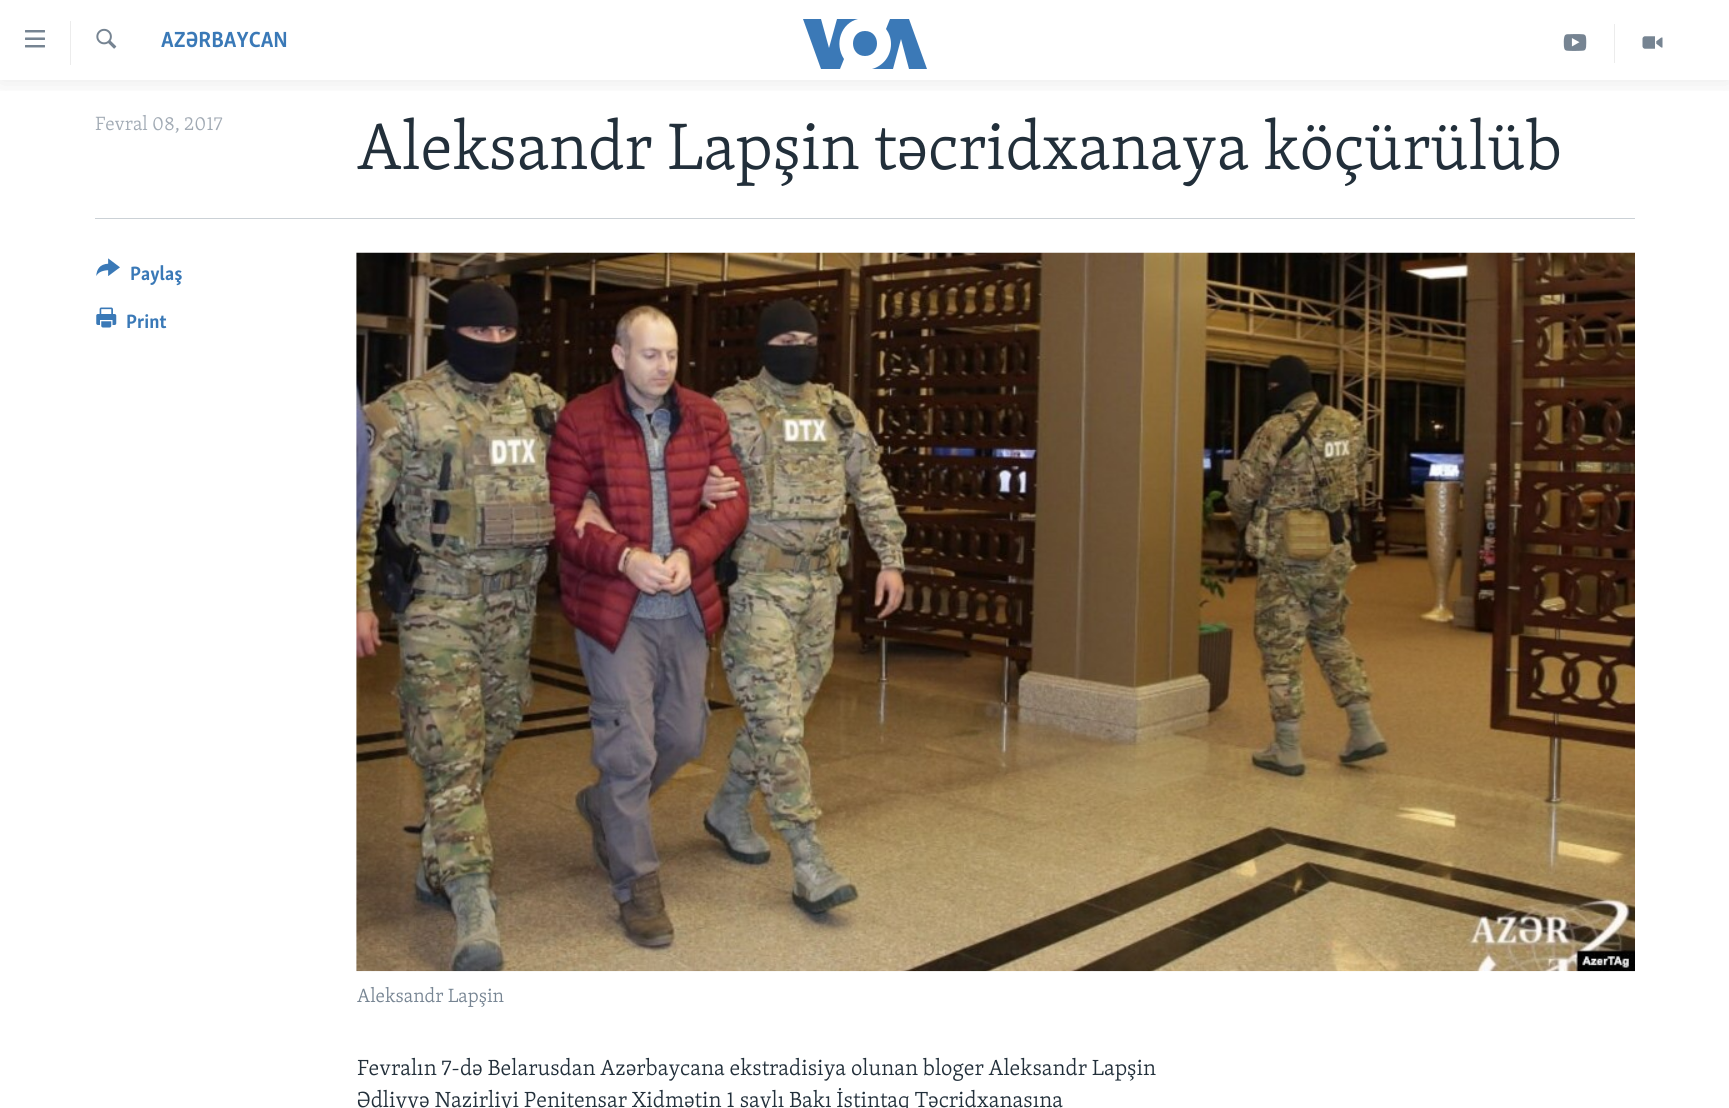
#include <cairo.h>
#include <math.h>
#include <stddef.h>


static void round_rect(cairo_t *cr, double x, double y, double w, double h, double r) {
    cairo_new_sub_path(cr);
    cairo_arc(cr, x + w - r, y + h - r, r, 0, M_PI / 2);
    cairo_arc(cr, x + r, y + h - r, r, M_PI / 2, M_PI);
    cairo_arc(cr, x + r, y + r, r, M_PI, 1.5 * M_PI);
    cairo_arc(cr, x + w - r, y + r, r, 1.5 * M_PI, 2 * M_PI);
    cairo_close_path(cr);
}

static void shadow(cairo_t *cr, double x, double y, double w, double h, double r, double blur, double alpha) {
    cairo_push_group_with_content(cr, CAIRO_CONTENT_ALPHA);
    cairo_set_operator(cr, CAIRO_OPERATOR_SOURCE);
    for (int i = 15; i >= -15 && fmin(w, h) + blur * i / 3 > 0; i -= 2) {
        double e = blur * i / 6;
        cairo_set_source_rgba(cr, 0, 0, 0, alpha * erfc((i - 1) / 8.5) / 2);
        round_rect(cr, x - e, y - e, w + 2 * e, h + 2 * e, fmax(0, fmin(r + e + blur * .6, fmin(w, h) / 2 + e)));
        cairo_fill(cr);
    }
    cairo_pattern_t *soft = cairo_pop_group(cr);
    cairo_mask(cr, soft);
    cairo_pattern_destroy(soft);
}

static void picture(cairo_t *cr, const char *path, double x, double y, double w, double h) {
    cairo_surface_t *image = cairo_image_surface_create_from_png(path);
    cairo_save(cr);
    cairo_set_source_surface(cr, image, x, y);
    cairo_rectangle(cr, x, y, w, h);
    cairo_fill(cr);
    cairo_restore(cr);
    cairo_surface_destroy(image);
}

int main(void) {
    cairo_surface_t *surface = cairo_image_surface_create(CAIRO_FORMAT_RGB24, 1729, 1108);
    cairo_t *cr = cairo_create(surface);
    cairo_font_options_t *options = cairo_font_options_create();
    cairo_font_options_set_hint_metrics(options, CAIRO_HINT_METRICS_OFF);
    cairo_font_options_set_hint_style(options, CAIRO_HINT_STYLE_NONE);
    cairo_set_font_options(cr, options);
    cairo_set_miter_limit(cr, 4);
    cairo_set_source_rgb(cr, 1, 1, 1);
    cairo_paint(cr);
    cairo_save(cr);
    cairo_rectangle(cr, 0, 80, 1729, 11);
    cairo_clip(cr);
    cairo_set_source_rgb(cr, 0, 0, 0);
    shadow(cr, 0, 0, 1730, 80, 0, 12.5, 0.1);
    cairo_restore(cr);
    picture(cr, "img1.png", 25, 30, 20, 18);
    cairo_set_source_rgb(cr, 0.922, 0.922, 0.922);
    cairo_rectangle(cr, 70, 21, 1, 44);
    cairo_fill(cr);
    picture(cr, "img2.png", 96, 28, 21, 21);
    cairo_select_font_face(cr, "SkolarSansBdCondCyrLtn", CAIRO_FONT_SLANT_NORMAL, CAIRO_FONT_WEIGHT_BOLD);
    cairo_set_font_size(cr, 22.5);
    cairo_set_source_rgb(cr, 0.227, 0.475, 0.718);
    cairo_move_to(cr, 161, 47);
    cairo_show_text(cr, "AZƏRBAYCAN");
    cairo_set_source_rgb(cr, 0.231, 0.475, 0.718);
    cairo_new_path(cr);
    cairo_move_to(cr, 844, 59);
    cairo_line_to(cr, 840, 69);
    cairo_line_to(cr, 821, 69);
    cairo_line_to(cr, 803, 19);
    cairo_line_to(cr, 821, 19);
    cairo_line_to(cr, 829, 48);
    cairo_line_to(cr, 837, 19);
    cairo_line_to(cr, 858, 19);
    cairo_curve_to(cr, 841, 23, 834, 44, 844, 59);
    cairo_close_path(cr);
    cairo_move_to(cr, 865, 31);
    cairo_curve_to(cr, 849, 31, 849, 56, 865, 56);
    cairo_curve_to(cr, 881, 56, 881, 31, 865, 31);
    cairo_close_path(cr);
    cairo_move_to(cr, 891, 44);
    cairo_curve_to(cr, 891, 56, 883, 66, 872, 69);
    cairo_line_to(cr, 893, 69);
    cairo_line_to(cr, 901, 39);
    cairo_line_to(cr, 909, 69);
    cairo_line_to(cr, 927, 69);
    cairo_line_to(cr, 909, 19);
    cairo_line_to(cr, 890, 19);
    cairo_line_to(cr, 886, 29);
    cairo_curve_to(cr, 889, 33, 891, 38, 891, 44);
    cairo_close_path(cr);
    cairo_fill(cr);
    cairo_set_source_rgb(cr, 0.922, 0.922, 0.922);
    cairo_rectangle(cr, 1614, 24, 1, 39);
    cairo_fill(cr);
    picture(cr, "img3.png", 1563, 34, 24, 17);
    picture(cr, "img4.png", 1642, 36, 21, 13);
    cairo_select_font_face(cr, "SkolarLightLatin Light", CAIRO_FONT_SLANT_NORMAL, CAIRO_FONT_WEIGHT_NORMAL);
    cairo_set_font_size(cr, 19.75);
    cairo_set_source_rgb(cr, 0.631, 0.667, 0.706);
    cairo_move_to(cr, 95, 130);
    cairo_show_text(cr, "Fevral 08, 2017");
    cairo_set_font_size(cr, 67.5);
    cairo_set_source_rgb(cr, 0.133, 0.184, 0.227);
    cairo_move_to(cr, 357, 169);
    cairo_show_text(cr, "Aleksandr Lapşin təcridxanaya köçürülüb");
    cairo_set_source_rgb(cr, 0.796, 0.82, 0.839);
    cairo_rectangle(cr, 95, 218, 1540, 1);
    cairo_fill(cr);
    picture(cr, "img5.png", 96, 258, 24, 18);
    cairo_select_font_face(cr, "SkolarSansBdCondCyrLtn", CAIRO_FONT_SLANT_NORMAL, CAIRO_FONT_WEIGHT_BOLD);
    cairo_set_font_size(cr, 19.75);
    cairo_set_source_rgb(cr, 0.227, 0.475, 0.718);
    cairo_move_to(cr, 130, 280);
    cairo_show_text(cr, "Paylaş");
    picture(cr, "img6.png", 96, 307, 21, 21);
    cairo_move_to(cr, 126, 328);
    cairo_show_text(cr, "Print");
    cairo_set_source_rgb(cr, 0.965, 0.969, 0.973);
    cairo_rectangle(cr, 356, 253, 1, 718);
    cairo_fill(cr);
    picture(cr, "img7.png", 356, 252, 1279, 720);
    cairo_select_font_face(cr, "SkolarLightLatin Light", CAIRO_FONT_SLANT_NORMAL, CAIRO_FONT_WEIGHT_NORMAL);
    cairo_set_source_rgb(cr, 0.463, 0.518, 0.573);
    cairo_move_to(cr, 357, 1002);
    cairo_show_text(cr, "Aleksandr Lapşin");
    cairo_set_font_size(cr, 22.5);
    cairo_set_source_rgb(cr, 0.133, 0.184, 0.227);
    cairo_move_to(cr, 357, 1075);
    cairo_show_text(cr, "Fevralın 7-də Belarusdan Azərbaycana ekstradisiya olunan bloger Aleksandr Lapşin");
    cairo_move_to(cr, 357, 1107);
    cairo_show_text(cr, "Ədliyyə Nazirliyi Penitensar Xidmətin 1 saylı Bakı İstintaq Təcridxanasına");
    cairo_surface_write_to_png(surface, "page.png");
    cairo_font_options_destroy(options);
    cairo_destroy(cr);
    cairo_surface_destroy(surface);
    return 0;
}
